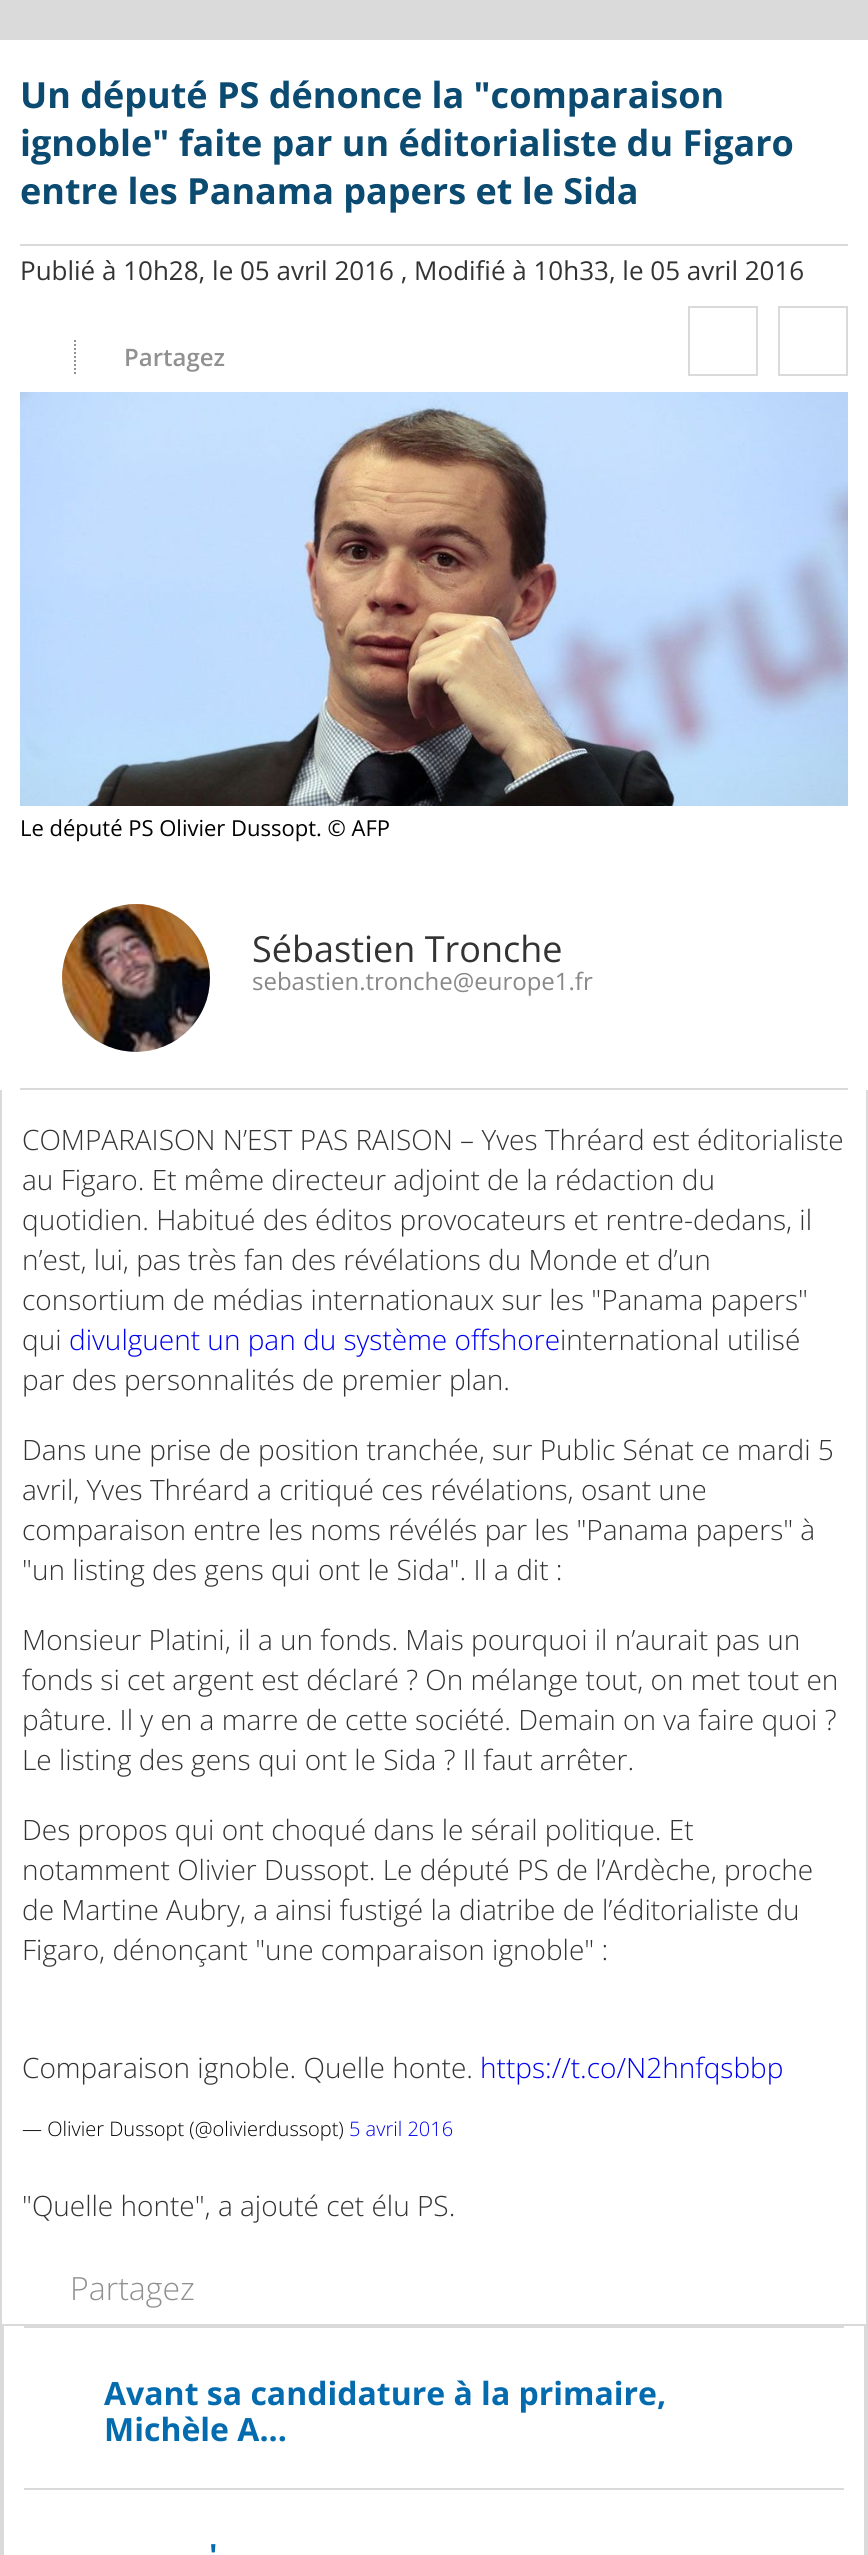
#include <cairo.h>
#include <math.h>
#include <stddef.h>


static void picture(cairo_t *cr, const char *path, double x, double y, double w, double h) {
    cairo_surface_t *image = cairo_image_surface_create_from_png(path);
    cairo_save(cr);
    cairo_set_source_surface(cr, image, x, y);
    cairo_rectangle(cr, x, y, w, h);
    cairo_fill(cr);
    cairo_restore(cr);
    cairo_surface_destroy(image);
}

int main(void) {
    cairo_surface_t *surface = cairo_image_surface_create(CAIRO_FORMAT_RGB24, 868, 2555);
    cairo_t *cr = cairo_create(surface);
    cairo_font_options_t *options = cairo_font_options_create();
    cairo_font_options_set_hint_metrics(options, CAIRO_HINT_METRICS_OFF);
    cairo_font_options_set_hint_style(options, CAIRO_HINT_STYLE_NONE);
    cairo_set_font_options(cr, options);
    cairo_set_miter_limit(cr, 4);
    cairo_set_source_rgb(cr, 0.855, 0.855, 0.855);
    cairo_paint(cr);
    cairo_set_source_rgb(cr, 1, 1, 1);
    cairo_rectangle(cr, 0, 40, 868, 2284);
    cairo_fill(cr);
    cairo_set_source_rgb(cr, 0.855, 0.855, 0.855);
    cairo_rectangle(cr, 20, 244, 828, 2);
    cairo_fill(cr);
    cairo_select_font_face(cr, "Open Sans", CAIRO_FONT_SLANT_NORMAL, CAIRO_FONT_WEIGHT_BOLD);
    cairo_set_font_size(cr, 36);
    cairo_set_source_rgb(cr, 0.043, 0.29, 0.443);
    cairo_move_to(cr, 20, 108);
    cairo_show_text(cr, "Un député PS dénonce la \"comparaison");
    cairo_move_to(cr, 20, 156);
    cairo_show_text(cr, "ignoble\" faite par un éditorialiste du Figaro");
    cairo_move_to(cr, 20, 204);
    cairo_show_text(cr, "entre les Panama papers et le Sida");
    cairo_select_font_face(cr, "Open Sans", CAIRO_FONT_SLANT_NORMAL, CAIRO_FONT_WEIGHT_NORMAL);
    cairo_set_font_size(cr, 26);
    cairo_set_source_rgb(cr, 0.2, 0.2, 0.2);
    cairo_move_to(cr, 20, 280);
    cairo_show_text(cr, "Publié à 10h28, le 05 avril 2016 , Modifié à 10h33, le 05 avril 2016");
    cairo_new_path(cr);
    cairo_move_to(cr, 75, 340);
    cairo_line_to(cr, 75, 376);
    cairo_set_source_rgb(cr, 0.569, 0.569, 0.569);
    cairo_set_dash(cr, (double[]){2, 2}, 2, 0);
    cairo_stroke(cr);
    cairo_select_font_face(cr, "Open Sans SemiBold", CAIRO_FONT_SLANT_NORMAL, CAIRO_FONT_WEIGHT_NORMAL);
    cairo_set_font_size(cr, 24);
    cairo_move_to(cr, 124, 366);
    cairo_show_text(cr, "Partagez");
    cairo_rectangle(cr, 689, 307, 68, 68);
    cairo_set_source_rgb(cr, 0.855, 0.855, 0.855);
    cairo_set_dash(cr, NULL, 0, 0);
    cairo_stroke(cr);
    cairo_rectangle(cr, 779, 307, 68, 68);
    cairo_stroke(cr);
    picture(cr, "img1.png", 20, 392, 828, 414);
    cairo_select_font_face(cr, "Open Sans", CAIRO_FONT_SLANT_NORMAL, CAIRO_FONT_WEIGHT_NORMAL);
    cairo_set_font_size(cr, 22);
    cairo_set_source_rgb(cr, 0, 0, 0);
    cairo_move_to(cr, 20, 836);
    cairo_show_text(cr, "Le député PS Olivier Dussopt. © AFP");
    cairo_set_source_rgb(cr, 0.855, 0.855, 0.855);
    cairo_rectangle(cr, 20, 1088, 828, 2);
    cairo_fill(cr);
    picture(cr, "img2.png", 62, 904, 148, 148);
    cairo_set_font_size(cr, 36);
    cairo_set_source_rgb(cr, 0.2, 0.2, 0.2);
    cairo_move_to(cr, 252, 962);
    cairo_show_text(cr, "Sébastien Tronche");
    cairo_set_font_size(cr, 24);
    cairo_set_source_rgb(cr, 0.533, 0.533, 0.533);
    cairo_move_to(cr, 252, 990);
    cairo_show_text(cr, "sebastien.tronche@europe1.fr");
    cairo_set_source_rgb(cr, 0.855, 0.855, 0.855);
    cairo_rectangle(cr, 866, 1090, 2, 1234);
    cairo_fill(cr);
    cairo_rectangle(cr, 0, 1090, 2, 1234);
    cairo_fill(cr);
    cairo_select_font_face(cr, "Open Sans Light", CAIRO_FONT_SLANT_NORMAL, CAIRO_FONT_WEIGHT_NORMAL);
    cairo_set_font_size(cr, 28);
    cairo_set_source_rgb(cr, 0.2, 0.2, 0.2);
    cairo_move_to(cr, 22, 1150);
    cairo_show_text(cr, "COMPARAISON N’EST PAS RAISON – Yves Thréard est éditorialiste");
    cairo_move_to(cr, 22, 1190);
    cairo_show_text(cr, "au Figaro. Et même directeur adjoint de la rédaction du");
    cairo_move_to(cr, 22, 1230);
    cairo_show_text(cr, "quotidien. Habitué des éditos provocateurs et rentre-dedans, il");
    cairo_move_to(cr, 22, 1270);
    cairo_show_text(cr, "n’est, lui, pas très fan des révélations du Monde et d’un");
    cairo_move_to(cr, 22, 1310);
    cairo_show_text(cr, "consortium de médias internationaux sur les \"Panama papers\"");
    cairo_move_to(cr, 22, 1350);
    cairo_show_text(cr, "qui");
    cairo_set_source_rgb(cr, 0, 0, 0.933);
    cairo_move_to(cr, 69, 1350);
    cairo_show_text(cr, "divulguent un pan du système offshore");
    cairo_set_source_rgb(cr, 0.2, 0.2, 0.2);
    cairo_move_to(cr, 560, 1350);
    cairo_show_text(cr, "international utilisé");
    cairo_move_to(cr, 22, 1390);
    cairo_show_text(cr, "par des personnalités de premier plan.");
    cairo_move_to(cr, 22, 1460);
    cairo_show_text(cr, "Dans une prise de position tranchée, sur Public Sénat ce mardi 5");
    cairo_move_to(cr, 22, 1500);
    cairo_show_text(cr, "avril, Yves Thréard a critiqué ces révélations, osant une");
    cairo_move_to(cr, 22, 1540);
    cairo_show_text(cr, "comparaison entre les noms révélés par les \"Panama papers\" à");
    cairo_move_to(cr, 22, 1580);
    cairo_show_text(cr, "\"un listing des gens qui ont le Sida\". Il a dit :");
    cairo_move_to(cr, 22, 1650);
    cairo_show_text(cr, "Monsieur Platini, il a un fonds. Mais pourquoi il n’aurait pas un");
    cairo_move_to(cr, 22, 1690);
    cairo_show_text(cr, "fonds si cet argent est déclaré ? On mélange tout, on met tout en");
    cairo_move_to(cr, 22, 1730);
    cairo_show_text(cr, "pâture. Il y en a marre de cette société. Demain on va faire quoi ?");
    cairo_move_to(cr, 22, 1770);
    cairo_show_text(cr, "Le listing des gens qui ont le Sida ? Il faut arrêter.");
    cairo_move_to(cr, 22, 1840);
    cairo_show_text(cr, "Des propos qui ont choqué dans le sérail politique. Et");
    cairo_move_to(cr, 22, 1880);
    cairo_show_text(cr, "notamment Olivier Dussopt. Le député PS de l’Ardèche, proche");
    cairo_move_to(cr, 22, 1920);
    cairo_show_text(cr, "de Martine Aubry, a ainsi fustigé la diatribe de l’éditorialiste du");
    cairo_move_to(cr, 22, 1960);
    cairo_show_text(cr, "Figaro, dénonçant \"une comparaison ignoble\" :");
    cairo_move_to(cr, 22, 2078);
    cairo_show_text(cr, "Comparaison ignoble. Quelle honte.");
    cairo_set_source_rgb(cr, 0, 0, 0.933);
    cairo_move_to(cr, 480, 2078);
    cairo_show_text(cr, "https://t.co/N2hnfqsbbp");
    cairo_set_font_size(cr, 20);
    cairo_set_source_rgb(cr, 0, 0, 0);
    cairo_move_to(cr, 22, 2136);
    cairo_show_text(cr, "— Olivier Dussopt (@olivierdussopt)");
    cairo_set_source_rgb(cr, 0, 0, 0.933);
    cairo_move_to(cr, 349, 2136);
    cairo_show_text(cr, "5 avril 2016");
    cairo_set_font_size(cr, 28);
    cairo_set_source_rgb(cr, 0.2, 0.2, 0.2);
    cairo_move_to(cr, 22, 2216);
    cairo_show_text(cr, "\"Quelle honte\", a ajouté cet élu PS.");
    cairo_set_font_size(cr, 32);
    cairo_set_source_rgb(cr, 0.569, 0.569, 0.569);
    cairo_move_to(cr, 70, 2300);
    cairo_show_text(cr, "Partagez");
    cairo_set_source_rgb(cr, 1, 1, 1);
    cairo_rectangle(cr, 4, 2326, 860, 229);
    cairo_fill(cr);
    cairo_set_source_rgb(cr, 0.855, 0.855, 0.855);
    cairo_rectangle(cr, 24, 2326, 820, 2);
    cairo_fill(cr);
    cairo_select_font_face(cr, "Open Sans", CAIRO_FONT_SLANT_NORMAL, CAIRO_FONT_WEIGHT_BOLD);
    cairo_set_source_rgb(cr, 0.016, 0.42, 0.686);
    cairo_move_to(cr, 104, 2405);
    cairo_show_text(cr, "Avant sa candidature à la primaire,");
    cairo_move_to(cr, 104, 2441);
    cairo_show_text(cr, "Michèle A...");
    cairo_set_source_rgb(cr, 0.855, 0.855, 0.855);
    cairo_rectangle(cr, 24, 2488, 820, 2);
    cairo_fill(cr);
    cairo_set_source_rgb(cr, 0.016, 0.42, 0.686);
    cairo_move_to(cr, 209, 2567);
    cairo_show_text(cr, "'");
    cairo_surface_write_to_png(surface, "page.png");
    cairo_font_options_destroy(options);
    cairo_destroy(cr);
    cairo_surface_destroy(surface);
    return 0;
}
